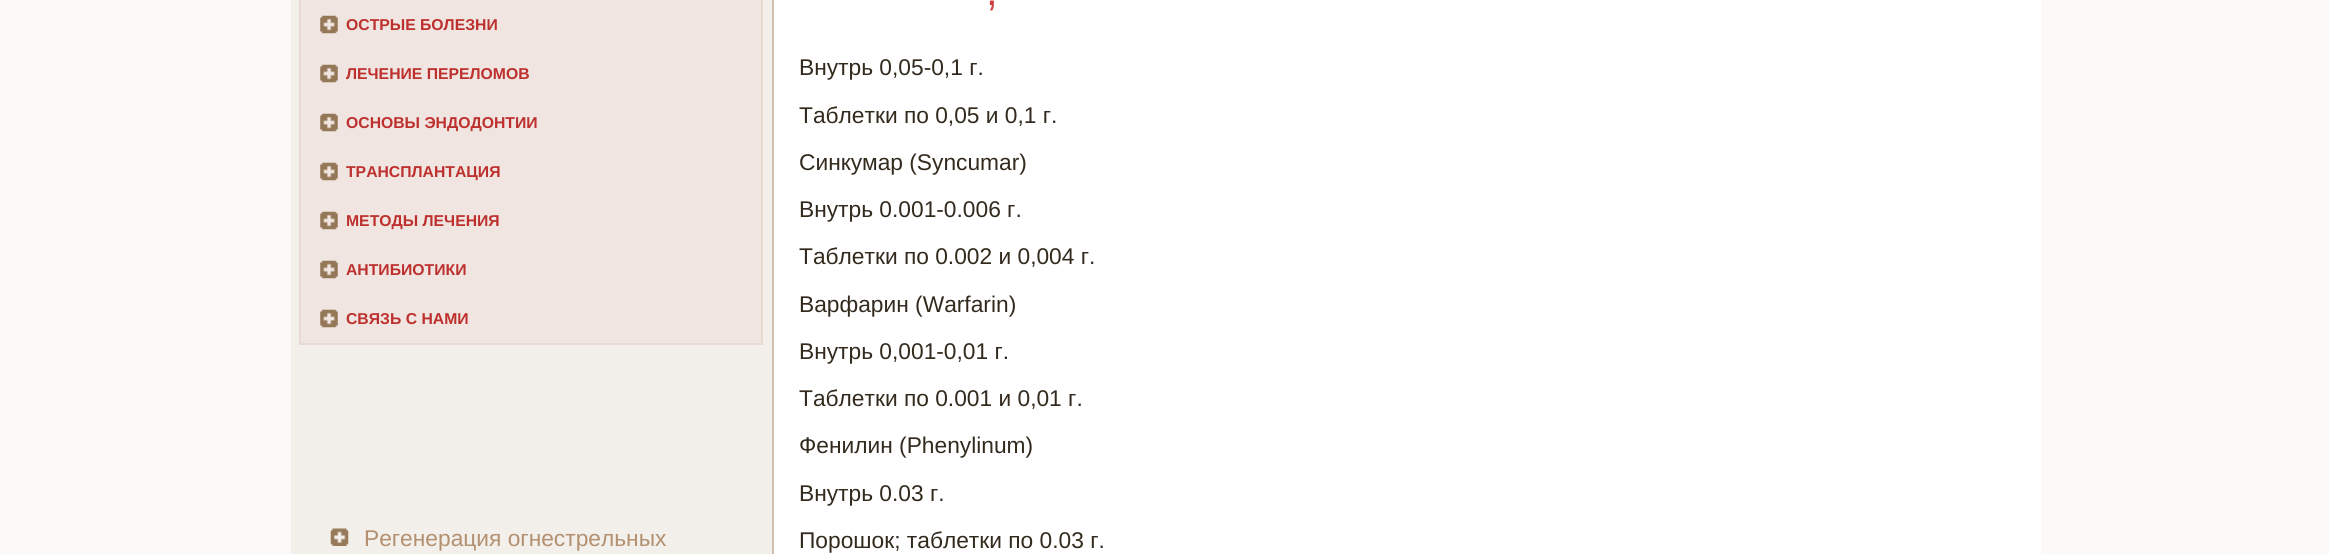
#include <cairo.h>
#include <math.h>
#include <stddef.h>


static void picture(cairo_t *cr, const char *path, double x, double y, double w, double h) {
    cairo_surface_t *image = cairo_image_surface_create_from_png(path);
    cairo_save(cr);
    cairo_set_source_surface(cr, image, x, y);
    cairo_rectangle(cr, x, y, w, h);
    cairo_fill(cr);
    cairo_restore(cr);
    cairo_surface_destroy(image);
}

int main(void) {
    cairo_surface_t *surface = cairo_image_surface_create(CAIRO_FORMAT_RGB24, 2329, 554);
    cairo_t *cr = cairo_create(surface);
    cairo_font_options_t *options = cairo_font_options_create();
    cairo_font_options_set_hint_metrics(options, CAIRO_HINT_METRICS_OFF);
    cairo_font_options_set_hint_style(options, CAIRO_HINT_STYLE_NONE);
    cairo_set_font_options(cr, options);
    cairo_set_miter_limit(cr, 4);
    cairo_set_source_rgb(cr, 0.984, 0.98, 0.976);
    cairo_paint(cr);
    cairo_set_source_rgb(cr, 1, 1, 1);
    cairo_rectangle(cr, 774, 0, 1267, 554);
    cairo_fill(cr);
    cairo_set_source_rgb(cr, 0.953, 0.937, 0.918);
    cairo_rectangle(cr, 291, 0, 481, 554);
    cairo_fill(cr);
    cairo_set_source_rgb(cr, 0.816, 0.753, 0.686);
    cairo_rectangle(cr, 772, 0, 2, 554);
    cairo_fill(cr);
    cairo_set_source_rgb(cr, 0.941, 0.898, 0.878);
    cairo_rectangle(cr, 300, -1, 462, 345);
    cairo_fill_preserve(cr);
    cairo_set_source_rgb(cr, 0.914, 0.851, 0.827);
    cairo_stroke(cr);
    picture(cr, "img1.png", 320, 15, 18, 19);
    cairo_select_font_face(cr, "Liberation Sans", CAIRO_FONT_SLANT_NORMAL, CAIRO_FONT_WEIGHT_BOLD);
    cairo_set_font_size(cr, 15.75);
    cairo_set_source_rgb(cr, 0.741, 0.188, 0.18);
    cairo_move_to(cr, 346, 30);
    cairo_show_text(cr, "ОСТРЫЕ БОЛЕЗНИ");
    picture(cr, "img1.png", 320, 64, 18, 19);
    cairo_move_to(cr, 346, 79);
    cairo_show_text(cr, "ЛЕЧЕНИЕ ПЕРЕЛОМОВ");
    picture(cr, "img1.png", 320, 113, 18, 19);
    cairo_move_to(cr, 346, 128);
    cairo_show_text(cr, "ОСНОВЫ ЭНДОДОНТИИ");
    picture(cr, "img1.png", 320, 162, 18, 19);
    cairo_move_to(cr, 346, 177);
    cairo_show_text(cr, "ТРАНСПЛАНТАЦИЯ");
    picture(cr, "img1.png", 320, 211, 18, 19);
    cairo_move_to(cr, 346, 226);
    cairo_show_text(cr, "МЕТОДЫ ЛЕЧЕНИЯ");
    picture(cr, "img1.png", 320, 260, 18, 19);
    cairo_move_to(cr, 346, 275);
    cairo_show_text(cr, "АНТИБИОТИКИ");
    picture(cr, "img1.png", 320, 309, 18, 19);
    cairo_move_to(cr, 346, 324);
    cairo_show_text(cr, "СВЯЗЬ С НАМИ");
    picture(cr, "img2.png", 330, 528, 19, 18);
    cairo_select_font_face(cr, "Liberation Sans", CAIRO_FONT_SLANT_NORMAL, CAIRO_FONT_WEIGHT_NORMAL);
    cairo_set_font_size(cr, 22.75);
    cairo_set_source_rgb(cr, 0.698, 0.565, 0.439);
    cairo_move_to(cr, 364, 546);
    cairo_show_text(cr, "Регенерация огнестрельных");
    cairo_set_font_size(cr, 42);
    cairo_set_source_rgb(cr, 0.816, 0.251, 0.243);
    cairo_move_to(cr, 986, 5);
    cairo_show_text(cr, ",");
    cairo_set_font_size(cr, 22.75);
    cairo_set_source_rgb(cr, 0.2, 0.165, 0.118);
    cairo_move_to(cr, 799, 75);
    cairo_show_text(cr, "Внутрь 0,05-0,1 г.");
    cairo_move_to(cr, 799, 123);
    cairo_show_text(cr, "Таблетки по 0,05 и 0,1 г.");
    cairo_move_to(cr, 799, 170);
    cairo_show_text(cr, "Синкумар (Syncumar)");
    cairo_move_to(cr, 799, 217);
    cairo_show_text(cr, "Внутрь 0.001-0.006 г.");
    cairo_move_to(cr, 799, 264);
    cairo_show_text(cr, "Таблетки по 0.002 и 0,004 г.");
    cairo_move_to(cr, 799, 312);
    cairo_show_text(cr, "Варфарин (Warfarin)");
    cairo_move_to(cr, 799, 359);
    cairo_show_text(cr, "Внутрь 0,001-0,01 г.");
    cairo_move_to(cr, 799, 406);
    cairo_show_text(cr, "Таблетки по 0.001 и 0,01 г.");
    cairo_move_to(cr, 799, 453);
    cairo_show_text(cr, "Фенилин (Phenylinum)");
    cairo_move_to(cr, 799, 501);
    cairo_show_text(cr, "Внутрь 0.03 г.");
    cairo_move_to(cr, 799, 548);
    cairo_show_text(cr, "Порошок; таблетки по 0.03 г.");
    cairo_surface_write_to_png(surface, "page.png");
    cairo_font_options_destroy(options);
    cairo_destroy(cr);
    cairo_surface_destroy(surface);
    return 0;
}
